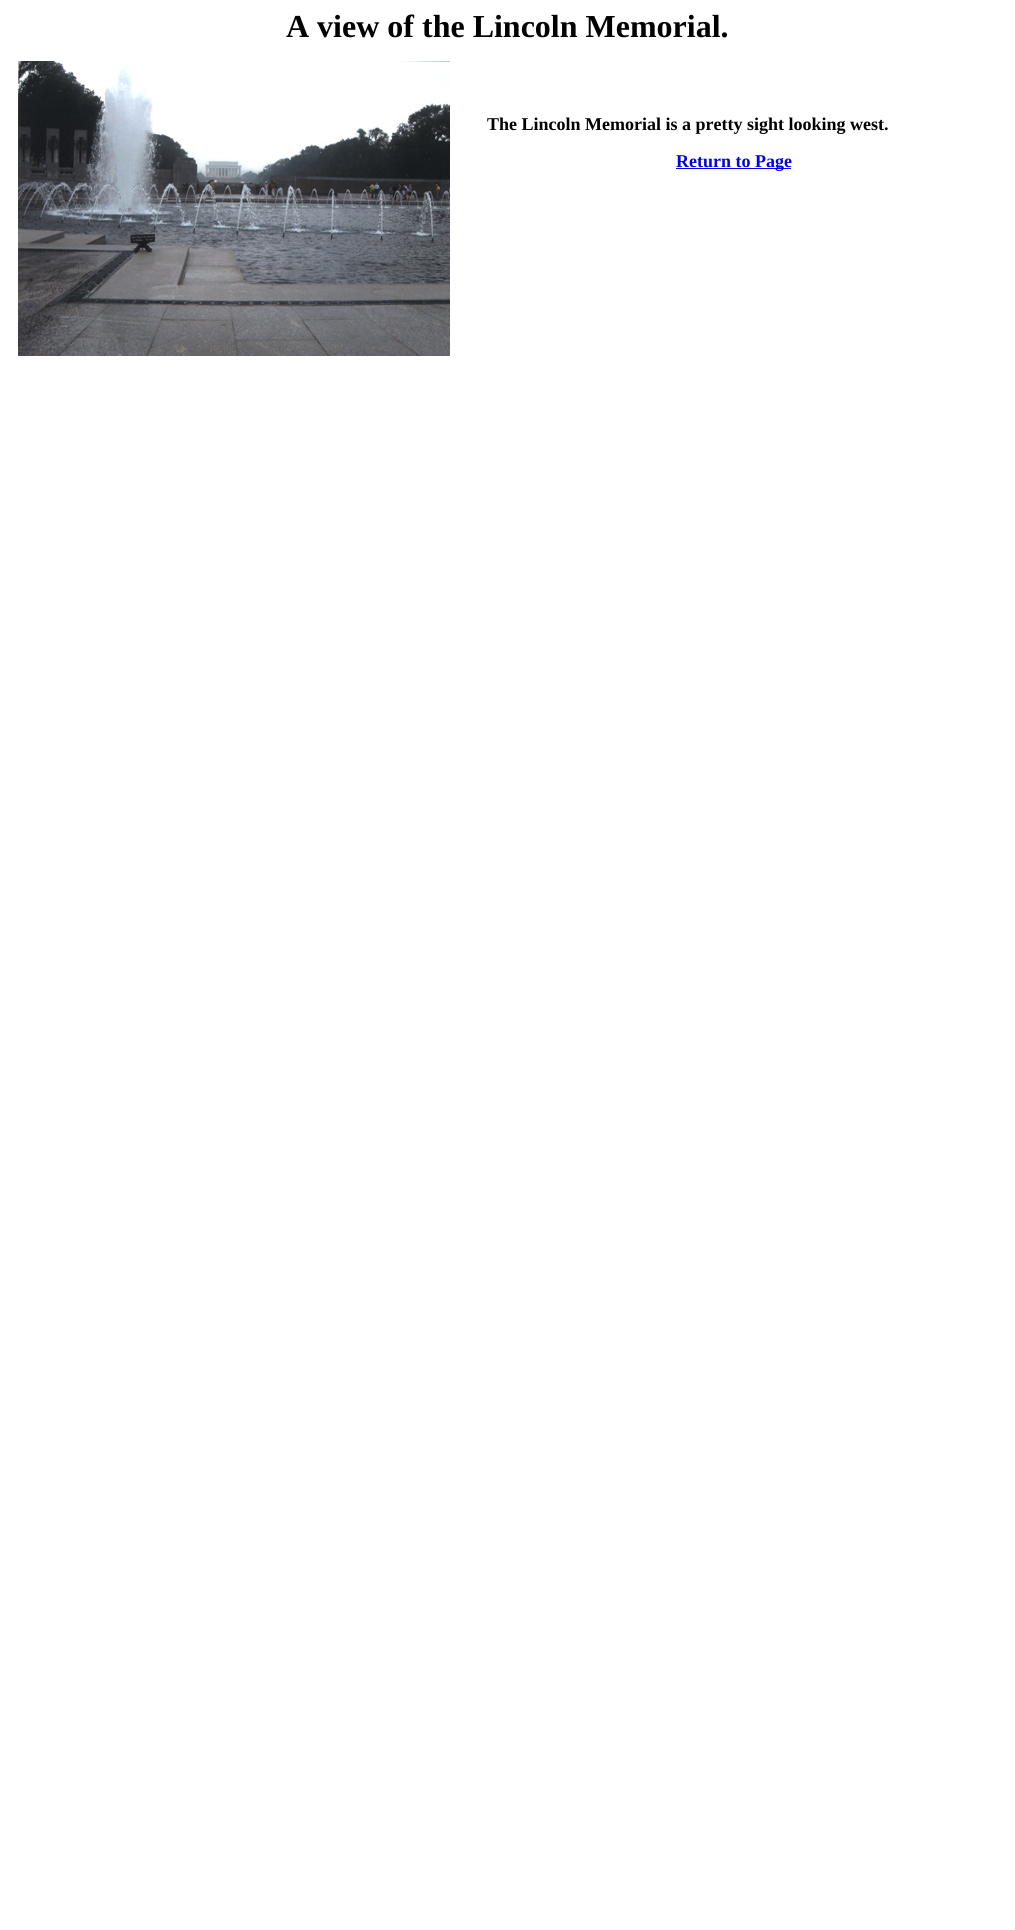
#include <cairo.h>
#include <math.h>
#include <stddef.h>


static void picture(cairo_t *cr, const char *path, double x, double y, double w, double h) {
    cairo_surface_t *image = cairo_image_surface_create_from_png(path);
    cairo_save(cr);
    cairo_set_source_surface(cr, image, x, y);
    cairo_rectangle(cr, x, y, w, h);
    cairo_fill(cr);
    cairo_restore(cr);
    cairo_surface_destroy(image);
}

int main(void) {
    cairo_surface_t *surface = cairo_image_surface_create(CAIRO_FORMAT_RGB24, 1015, 1930);
    cairo_t *cr = cairo_create(surface);
    cairo_font_options_t *options = cairo_font_options_create();
    cairo_font_options_set_hint_metrics(options, CAIRO_HINT_METRICS_OFF);
    cairo_font_options_set_hint_style(options, CAIRO_HINT_STYLE_NONE);
    cairo_set_font_options(cr, options);
    cairo_set_miter_limit(cr, 4);
    cairo_set_source_rgb(cr, 1, 1, 1);
    cairo_paint(cr);
    cairo_select_font_face(cr, "Liberation Serif", CAIRO_FONT_SLANT_NORMAL, CAIRO_FONT_WEIGHT_BOLD);
    cairo_set_font_size(cr, 32);
    cairo_set_source_rgb(cr, 0, 0, 0);
    cairo_move_to(cr, 286, 37);
    cairo_show_text(cr, "A view of the Lincoln Memorial.");
    picture(cr, "img1.png", 18, 61, 432, 295);
    cairo_set_font_size(cr, 18);
    cairo_move_to(cr, 487, 130);
    cairo_show_text(cr, "The Lincoln Memorial is a pretty sight looking west.");
    cairo_set_source_rgb(cr, 0, 0, 0.933);
    cairo_rectangle(cr, 676, 168, 115, 1);
    cairo_fill(cr);
    cairo_move_to(cr, 676, 167);
    cairo_show_text(cr, "Return to Page");
    cairo_surface_write_to_png(surface, "page.png");
    cairo_font_options_destroy(options);
    cairo_destroy(cr);
    cairo_surface_destroy(surface);
    return 0;
}
